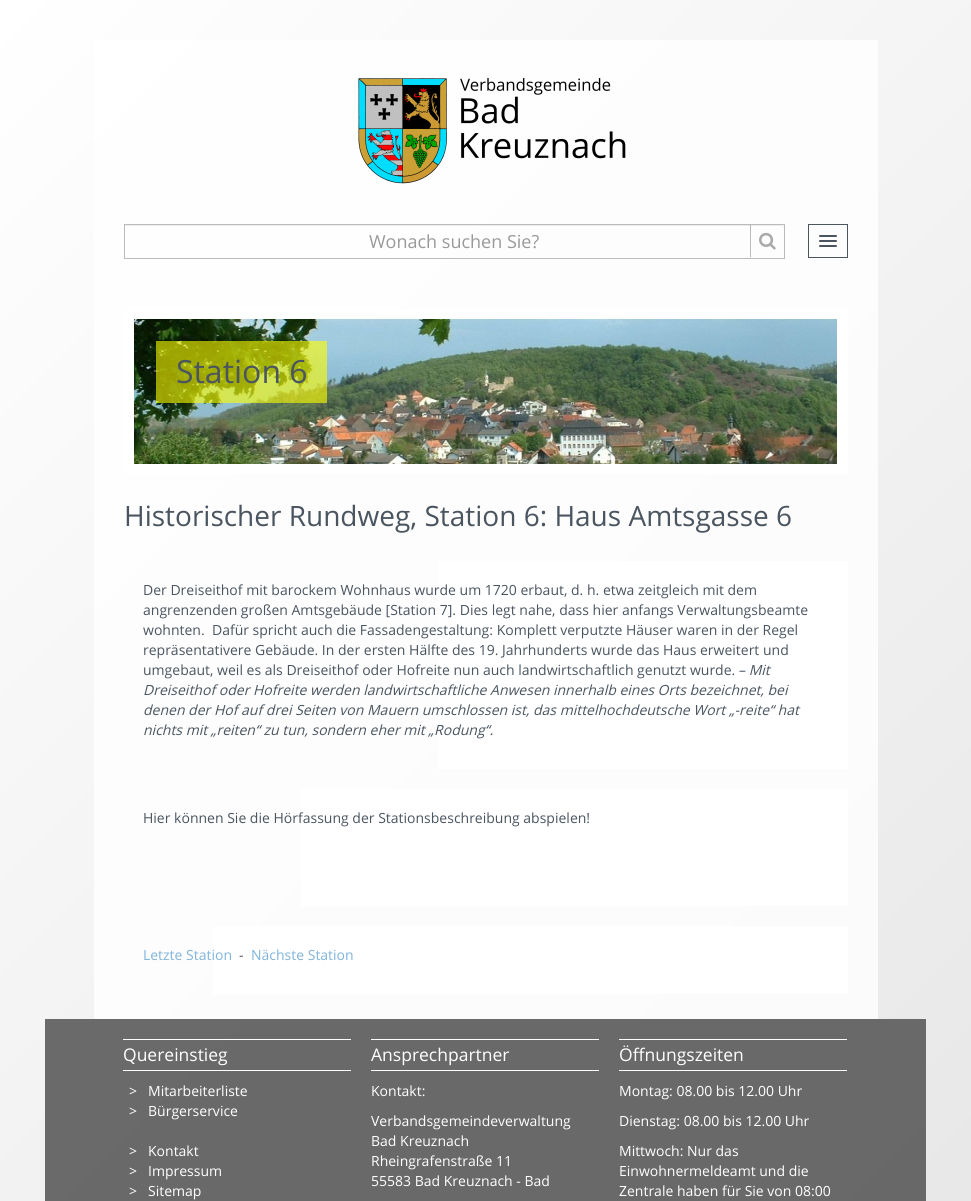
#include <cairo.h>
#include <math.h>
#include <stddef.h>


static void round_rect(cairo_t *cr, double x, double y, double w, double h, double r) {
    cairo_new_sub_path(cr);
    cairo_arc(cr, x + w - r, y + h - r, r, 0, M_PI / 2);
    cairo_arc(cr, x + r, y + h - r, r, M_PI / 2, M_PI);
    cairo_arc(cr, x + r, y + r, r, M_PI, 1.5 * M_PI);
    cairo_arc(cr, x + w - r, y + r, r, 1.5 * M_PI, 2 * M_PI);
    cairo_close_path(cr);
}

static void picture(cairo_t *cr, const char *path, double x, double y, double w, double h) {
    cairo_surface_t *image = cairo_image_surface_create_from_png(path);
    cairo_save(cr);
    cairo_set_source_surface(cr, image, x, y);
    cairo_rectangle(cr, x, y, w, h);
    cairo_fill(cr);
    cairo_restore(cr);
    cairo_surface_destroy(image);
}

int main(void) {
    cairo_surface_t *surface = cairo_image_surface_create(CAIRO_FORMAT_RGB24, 971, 1201);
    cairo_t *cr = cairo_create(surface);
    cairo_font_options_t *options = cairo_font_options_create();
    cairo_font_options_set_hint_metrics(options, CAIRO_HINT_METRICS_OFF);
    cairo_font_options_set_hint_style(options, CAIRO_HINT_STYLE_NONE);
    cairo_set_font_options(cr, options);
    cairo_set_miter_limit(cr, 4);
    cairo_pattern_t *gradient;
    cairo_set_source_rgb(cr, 1, 1, 1);
    cairo_paint(cr);
    gradient = cairo_pattern_create_linear(-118, 118, 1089, 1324);
    cairo_pattern_add_color_stop_rgba(gradient, 0, 1, 1, 1, 1);
    cairo_pattern_add_color_stop_rgba(gradient, 1, 0.898, 0.898, 0.898, 1);
    cairo_set_source(cr, gradient);
    cairo_pattern_destroy(gradient);
    cairo_rectangle(cr, 0, 0, 971, 1201);
    cairo_fill(cr);
    gradient = cairo_pattern_create_linear(-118, 118, 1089, 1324);
    cairo_pattern_add_color_stop_rgba(gradient, 0, 0.42, 0.42, 0.42, 1);
    cairo_pattern_add_color_stop_rgba(gradient, 1, 0.408, 0.408, 0.408, 1);
    cairo_set_source(cr, gradient);
    cairo_pattern_destroy(gradient);
    cairo_rectangle(cr, 45, 1019, 881, 182);
    cairo_fill(cr);
    gradient = cairo_pattern_create_linear(-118, 118, 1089, 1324);
    cairo_pattern_add_color_stop_rgba(gradient, 0, 1, 1, 1, 1);
    cairo_pattern_add_color_stop_rgba(gradient, 1, 0.98, 0.98, 0.98, 1);
    cairo_set_source(cr, gradient);
    cairo_pattern_destroy(gradient);
    cairo_rectangle(cr, 94, 474, 784, 545);
    cairo_fill(cr);
    cairo_rectangle(cr, 94, 40, 784, 434);
    cairo_fill(cr);
    picture(cr, "img1.png", 358, 78, 268, 106);
    cairo_rectangle(cr, 124.5, 224.5, 660, 34);
    cairo_set_source_rgb(cr, 0.733, 0.733, 0.733);
    cairo_set_line_width(cr, 1);
    cairo_stroke(cr);
    cairo_rectangle(cr, 750, 225, 1, 32);
    cairo_fill(cr);
    cairo_set_source_rgba(cr, 0, 0, 0, 0.07);
    cairo_new_path(cr);
    cairo_move_to(cr, 125, 226);
    cairo_line_to(cr, 781, 226);
    cairo_curve_to(cr, 783, 226, 785, 228, 785, 230);
    cairo_line_to(cr, 785, 229);
    cairo_curve_to(cr, 785, 227, 783, 225, 781, 225);
    cairo_line_to(cr, 125, 225);
    cairo_close_path(cr);
    cairo_fill(cr);
    cairo_select_font_face(cr, "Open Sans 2", CAIRO_FONT_SLANT_NORMAL, CAIRO_FONT_WEIGHT_NORMAL);
    cairo_set_font_size(cr, 18);
    cairo_set_source_rgb(cr, 0.6, 0.6, 0.6);
    cairo_move_to(cr, 369, 248);
    cairo_show_text(cr, "Wonach suchen Sie?");
    picture(cr, "img2.png", 759, 232, 17, 18);
    cairo_rectangle(cr, 808.5, 224.5, 39, 33);
    cairo_set_source_rgb(cr, 0.29, 0.333, 0.376);
    cairo_stroke(cr);
    round_rect(cr, 819, 235, 18, 2, 1);
    cairo_fill(cr);
    round_rect(cr, 819, 240, 18, 2, 1);
    cairo_fill(cr);
    round_rect(cr, 819, 245, 18, 2, 1);
    cairo_fill(cr);
    cairo_rectangle(cr, 129, 314, 714, 155);
    cairo_set_source_rgb(cr, 1, 1, 1);
    cairo_set_line_width(cr, 10);
    cairo_stroke(cr);
    picture(cr, "img3.png", 134, 319, 703, 145);
    cairo_set_source_rgba(cr, 1, 1, 0, 0.6);
    cairo_rectangle(cr, 156, 341, 171, 62);
    cairo_fill(cr);
    cairo_select_font_face(cr, "Open Sans", CAIRO_FONT_SLANT_NORMAL, CAIRO_FONT_WEIGHT_NORMAL);
    cairo_set_font_size(cr, 32);
    cairo_set_source_rgb(cr, 0.29, 0.333, 0.376);
    cairo_move_to(cr, 176, 383);
    cairo_show_text(cr, "Station 6");
    cairo_set_font_size(cr, 28);
    cairo_move_to(cr, 124, 526);
    cairo_show_text(cr, "Historischer Rundweg, Station 6: Haus Amtsgasse 6");
    cairo_set_source_rgb(cr, 1, 1, 1);
    cairo_rectangle(cr, 438, 561, 410, 208);
    cairo_fill(cr);
    cairo_set_font_size(cr, 14);
    cairo_set_source_rgb(cr, 0.29, 0.333, 0.376);
    cairo_move_to(cr, 143, 595);
    cairo_show_text(cr, "Der Dreiseithof mit barockem Wohnhaus wurde um 1720 erbaut, d. h. etwa zeitgleich mit dem");
    cairo_move_to(cr, 143, 615);
    cairo_show_text(cr, "angrenzenden großen Amtsgebäude [Station 7]. Dies legt nahe, dass hier anfangs Verwaltungsbeamte");
    cairo_move_to(cr, 143, 635);
    cairo_show_text(cr, "wohnten.  Dafür spricht auch die Fassadengestaltung: Komplett verputzte Häuser waren in der Regel");
    cairo_move_to(cr, 143, 655);
    cairo_show_text(cr, "repräsentativere Gebäude. In der ersten Hälfte des 19. Jahrhunderts wurde das Haus erweitert und");
    cairo_move_to(cr, 143, 675);
    cairo_show_text(cr, "umgebaut, weil es als Dreiseithof oder Hofreite nun auch landwirtschaftlich genutzt wurde.");
    cairo_select_font_face(cr, "Open Sans", CAIRO_FONT_SLANT_ITALIC, CAIRO_FONT_WEIGHT_NORMAL);
    cairo_move_to(cr, 738, 675);
    cairo_show_text(cr, "– Mit");
    cairo_move_to(cr, 143, 695);
    cairo_show_text(cr, "Dreiseithof oder Hofreite werden landwirtschaftliche Anwesen innerhalb eines Orts bezeichnet, bei");
    cairo_move_to(cr, 143, 715);
    cairo_show_text(cr, "denen der Hof auf drei Seiten von Mauern umschlossen ist, das mittelhochdeutsche Wort „-reite“ hat");
    cairo_move_to(cr, 143, 735);
    cairo_show_text(cr, "nichts mit „reiten“ zu tun, sondern eher mit „Rodung“.");
    cairo_set_source_rgb(cr, 1, 1, 1);
    cairo_rectangle(cr, 301, 789, 547, 117);
    cairo_fill(cr);
    cairo_select_font_face(cr, "Open Sans", CAIRO_FONT_SLANT_NORMAL, CAIRO_FONT_WEIGHT_NORMAL);
    cairo_set_source_rgb(cr, 0.29, 0.333, 0.376);
    cairo_move_to(cr, 143, 823);
    cairo_show_text(cr, "Hier können Sie die Hörfassung der Stationsbeschreibung abspielen!");
    cairo_set_source_rgb(cr, 1, 1, 1);
    cairo_rectangle(cr, 213, 926, 635, 68);
    cairo_fill(cr);
    cairo_set_source_rgb(cr, 0.502, 0.706, 0.859);
    cairo_move_to(cr, 143, 960);
    cairo_show_text(cr, "Letzte Station");
    cairo_set_source_rgb(cr, 0.29, 0.333, 0.376);
    cairo_move_to(cr, 239, 960);
    cairo_show_text(cr, "-");
    cairo_set_source_rgb(cr, 0.502, 0.706, 0.859);
    cairo_move_to(cr, 251, 960);
    cairo_show_text(cr, "Nächste Station");
    cairo_set_source_rgb(cr, 1, 1, 1);
    cairo_rectangle(cr, 123, 1039, 228, 1);
    cairo_fill(cr);
    cairo_rectangle(cr, 123, 1070, 228, 1);
    cairo_fill(cr);
    cairo_set_font_size(cr, 17.5);
    cairo_move_to(cr, 123, 1061);
    cairo_show_text(cr, "Quereinstieg");
    cairo_set_font_size(cr, 14);
    cairo_move_to(cr, 129, 1096);
    cairo_show_text(cr, ">");
    cairo_move_to(cr, 148, 1096);
    cairo_show_text(cr, "Mitarbeiterliste");
    cairo_move_to(cr, 129, 1116);
    cairo_show_text(cr, ">");
    cairo_move_to(cr, 148, 1116);
    cairo_show_text(cr, "Bürgerservice");
    cairo_move_to(cr, 129, 1156);
    cairo_show_text(cr, ">");
    cairo_move_to(cr, 148, 1156);
    cairo_show_text(cr, "Kontakt");
    cairo_move_to(cr, 129, 1176);
    cairo_show_text(cr, ">");
    cairo_move_to(cr, 148, 1176);
    cairo_show_text(cr, "Impressum");
    cairo_move_to(cr, 129, 1196);
    cairo_show_text(cr, ">");
    cairo_move_to(cr, 148, 1196);
    cairo_show_text(cr, "Sitemap");
    cairo_rectangle(cr, 371, 1039, 228, 1);
    cairo_fill(cr);
    cairo_rectangle(cr, 371, 1070, 228, 1);
    cairo_fill(cr);
    cairo_set_font_size(cr, 17.5);
    cairo_move_to(cr, 371, 1061);
    cairo_show_text(cr, "Ansprechpartner");
    cairo_set_font_size(cr, 14);
    cairo_move_to(cr, 371, 1096);
    cairo_show_text(cr, "Kontakt:");
    cairo_move_to(cr, 371, 1126);
    cairo_show_text(cr, "Verbandsgemeindeverwaltung");
    cairo_move_to(cr, 371, 1146);
    cairo_show_text(cr, "Bad Kreuznach");
    cairo_move_to(cr, 371, 1166);
    cairo_show_text(cr, "Rheingrafenstraße 11");
    cairo_move_to(cr, 371, 1186);
    cairo_show_text(cr, "55583 Bad Kreuznach - Bad");
    cairo_rectangle(cr, 619, 1039, 228, 1);
    cairo_fill(cr);
    cairo_rectangle(cr, 619, 1070, 228, 1);
    cairo_fill(cr);
    cairo_set_font_size(cr, 17.5);
    cairo_move_to(cr, 619, 1061);
    cairo_show_text(cr, "Öffnungszeiten");
    cairo_set_font_size(cr, 14);
    cairo_move_to(cr, 619, 1096);
    cairo_show_text(cr, "Montag: 08.00 bis 12.00 Uhr");
    cairo_move_to(cr, 619, 1126);
    cairo_show_text(cr, "Dienstag: 08.00 bis 12.00 Uhr");
    cairo_move_to(cr, 619, 1156);
    cairo_show_text(cr, "Mittwoch: Nur das");
    cairo_move_to(cr, 619, 1176);
    cairo_show_text(cr, "Einwohnermeldeamt und die");
    cairo_move_to(cr, 619, 1196);
    cairo_show_text(cr, "Zentrale haben für Sie von 08:00");
    cairo_surface_write_to_png(surface, "page.png");
    cairo_font_options_destroy(options);
    cairo_destroy(cr);
    cairo_surface_destroy(surface);
    return 0;
}
